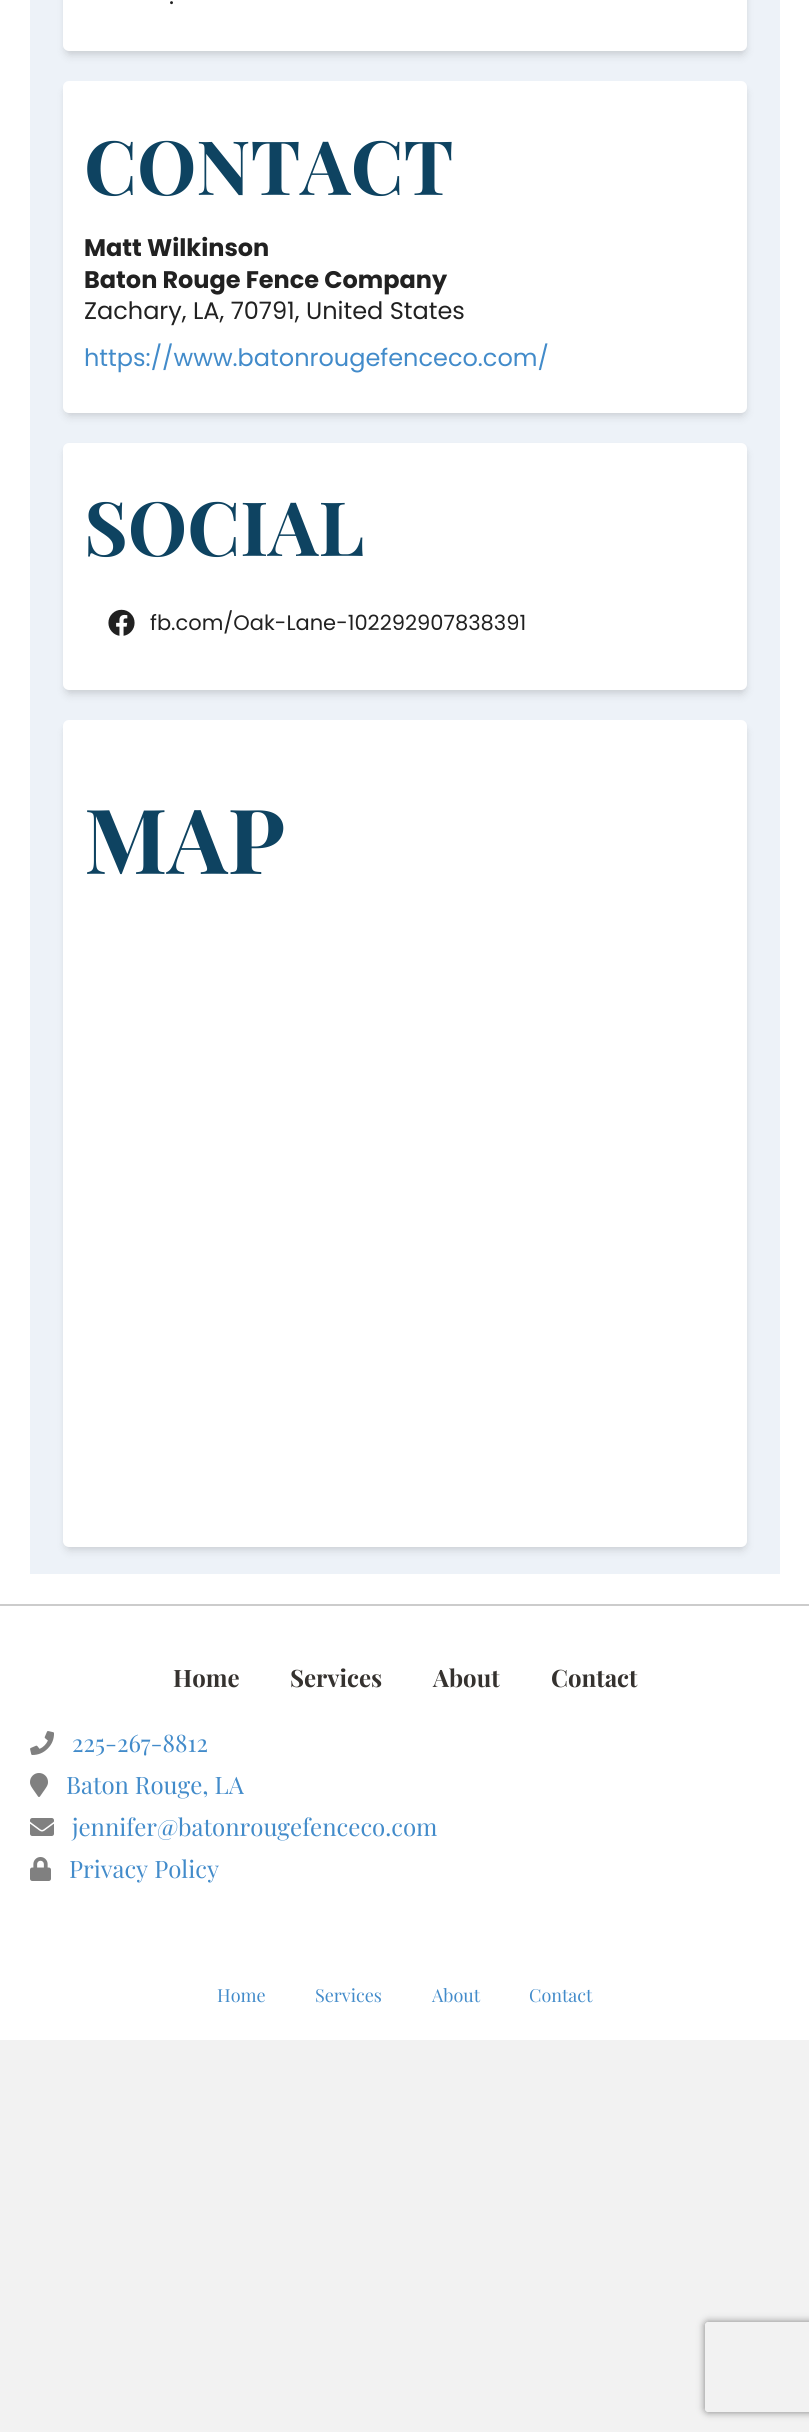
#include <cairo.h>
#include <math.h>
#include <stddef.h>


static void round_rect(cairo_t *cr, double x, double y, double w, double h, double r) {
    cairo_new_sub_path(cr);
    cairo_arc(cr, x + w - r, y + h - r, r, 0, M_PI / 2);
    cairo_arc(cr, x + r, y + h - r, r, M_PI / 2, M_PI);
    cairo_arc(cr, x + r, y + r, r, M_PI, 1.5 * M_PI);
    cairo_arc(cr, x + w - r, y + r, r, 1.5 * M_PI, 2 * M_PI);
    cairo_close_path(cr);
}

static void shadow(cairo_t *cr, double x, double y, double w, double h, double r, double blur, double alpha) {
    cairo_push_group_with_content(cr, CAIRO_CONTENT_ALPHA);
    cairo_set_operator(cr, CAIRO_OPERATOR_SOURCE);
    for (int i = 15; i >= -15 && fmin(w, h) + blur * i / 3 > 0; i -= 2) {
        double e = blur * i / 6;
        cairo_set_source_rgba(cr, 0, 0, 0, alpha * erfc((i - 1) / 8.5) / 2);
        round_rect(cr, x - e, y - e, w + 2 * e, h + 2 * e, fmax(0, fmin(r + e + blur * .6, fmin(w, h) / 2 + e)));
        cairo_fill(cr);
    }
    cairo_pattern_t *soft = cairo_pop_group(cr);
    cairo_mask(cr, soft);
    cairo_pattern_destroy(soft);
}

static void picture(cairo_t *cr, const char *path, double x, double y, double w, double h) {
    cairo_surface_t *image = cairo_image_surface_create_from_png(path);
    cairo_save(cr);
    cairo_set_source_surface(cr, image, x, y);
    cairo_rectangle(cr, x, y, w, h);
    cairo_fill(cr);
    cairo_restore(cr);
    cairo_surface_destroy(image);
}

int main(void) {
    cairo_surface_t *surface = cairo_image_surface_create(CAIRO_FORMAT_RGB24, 809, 2432);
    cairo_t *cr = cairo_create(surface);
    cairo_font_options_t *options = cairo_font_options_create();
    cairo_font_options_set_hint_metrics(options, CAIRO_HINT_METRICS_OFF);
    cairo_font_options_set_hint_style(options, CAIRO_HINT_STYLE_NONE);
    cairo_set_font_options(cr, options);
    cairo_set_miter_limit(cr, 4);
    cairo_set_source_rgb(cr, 0.949, 0.949, 0.949);
    cairo_paint(cr);
    cairo_set_source_rgb(cr, 1, 1, 1);
    cairo_rectangle(cr, 0, 0, 809, 1604);
    cairo_fill(cr);
    cairo_set_source_rgb(cr, 0.929, 0.949, 0.969);
    cairo_rectangle(cr, 30, 0, 750, 1574);
    cairo_fill(cr);
    cairo_set_source_rgb(cr, 0, 0, 0);
    shadow(cr, 65, -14, 681, 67, 5, 3, 0.06);
    shadow(cr, 65, -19, 681, 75, 5, 4.5, 0.1);
    cairo_set_source_rgb(cr, 1, 1, 1);
    round_rect(cr, 63, -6, 684, 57, 6);
    cairo_fill(cr);
    cairo_select_font_face(cr, "Poppins", CAIRO_FONT_SLANT_NORMAL, CAIRO_FONT_WEIGHT_NORMAL);
    cairo_set_font_size(cr, 24);
    cairo_set_source_rgb(cr, 0.129, 0.129, 0.129);
    cairo_move_to(cr, 169, 4);
    cairo_show_text(cr, ".");
    cairo_set_source_rgb(cr, 0, 0, 0);
    shadow(cr, 65, 86, 681, 328, 5, 3, 0.06);
    shadow(cr, 65, 89, 681, 328, 5, 4.5, 0.1);
    cairo_set_source_rgb(cr, 1, 1, 1);
    round_rect(cr, 63, 81, 684, 332, 6);
    cairo_fill(cr);
    cairo_select_font_face(cr, "Playfair Display", CAIRO_FONT_SLANT_NORMAL, CAIRO_FONT_WEIGHT_BOLD);
    cairo_set_font_size(cr, 75);
    cairo_set_source_rgb(cr, 0.055, 0.263, 0.38);
    cairo_move_to(cr, 84, 195);
    cairo_show_text(cr, "CONTACT");
    cairo_select_font_face(cr, "Poppins", CAIRO_FONT_SLANT_NORMAL, CAIRO_FONT_WEIGHT_BOLD);
    cairo_set_font_size(cr, 24);
    cairo_set_source_rgb(cr, 0.129, 0.129, 0.129);
    cairo_move_to(cr, 84, 256);
    cairo_show_text(cr, "Matt Wilkinson");
    cairo_move_to(cr, 84, 288);
    cairo_show_text(cr, "Baton Rouge Fence Company");
    cairo_select_font_face(cr, "Poppins", CAIRO_FONT_SLANT_NORMAL, CAIRO_FONT_WEIGHT_NORMAL);
    cairo_move_to(cr, 84, 319);
    cairo_show_text(cr, "Zachary, LA, 70791, United States");
    cairo_set_source_rgb(cr, 0.259, 0.545, 0.792);
    cairo_move_to(cr, 84, 366);
    cairo_show_text(cr, "https://www.batonrougefenceco.com/");
    cairo_set_source_rgb(cr, 0, 0, 0);
    shadow(cr, 65, 447, 681, 245, 5, 3, 0.06);
    shadow(cr, 65, 450, 681, 245, 5, 4.5, 0.1);
    cairo_set_source_rgb(cr, 1, 1, 1);
    round_rect(cr, 63, 443, 684, 247, 6);
    cairo_fill(cr);
    cairo_select_font_face(cr, "Playfair Display", CAIRO_FONT_SLANT_NORMAL, CAIRO_FONT_WEIGHT_BOLD);
    cairo_set_font_size(cr, 75);
    cairo_set_source_rgb(cr, 0.055, 0.263, 0.38);
    cairo_move_to(cr, 84, 556);
    cairo_show_text(cr, "SOCIAL");
    picture(cr, "img1.png", 108, 609, 27, 27);
    cairo_select_font_face(cr, "Poppins", CAIRO_FONT_SLANT_NORMAL, CAIRO_FONT_WEIGHT_NORMAL);
    cairo_set_font_size(cr, 21);
    cairo_set_source_rgb(cr, 0.129, 0.129, 0.129);
    cairo_move_to(cr, 150, 630);
    cairo_show_text(cr, "fb.com/Oak-Lane-102292907838391");
    cairo_set_source_rgb(cr, 0, 0, 0);
    shadow(cr, 65, 725, 681, 823, 5, 3, 0.06);
    shadow(cr, 65, 728, 681, 823, 5, 4.5, 0.1);
    cairo_set_source_rgb(cr, 1, 1, 1);
    round_rect(cr, 63, 720, 684, 827, 6);
    cairo_fill(cr);
    cairo_select_font_face(cr, "Playfair Display", CAIRO_FONT_SLANT_NORMAL, CAIRO_FONT_WEIGHT_BOLD);
    cairo_set_font_size(cr, 90);
    cairo_set_source_rgb(cr, 0.055, 0.263, 0.38);
    cairo_move_to(cr, 84, 874);
    cairo_show_text(cr, "MAP");
    cairo_set_source_rgb(cr, 1, 1, 1);
    cairo_rectangle(cr, 0, 1606, 809, 434);
    cairo_fill(cr);
    cairo_set_source_rgb(cr, 0.8, 0.8, 0.8);
    cairo_rectangle(cr, 0, 1604, 809, 2);
    cairo_fill(cr);
    cairo_set_font_size(cr, 24);
    cairo_set_source_rgb(cr, 0.208, 0.196, 0.184);
    cairo_move_to(cr, 173, 1687);
    cairo_show_text(cr, "Home");
    cairo_move_to(cr, 290, 1687);
    cairo_show_text(cr, "Services");
    cairo_move_to(cr, 433, 1687);
    cairo_show_text(cr, "About");
    cairo_move_to(cr, 551, 1687);
    cairo_show_text(cr, "Contact");
    picture(cr, "img2.png", 30, 1731, 24, 24);
    cairo_select_font_face(cr, "Playfair Display", CAIRO_FONT_SLANT_NORMAL, CAIRO_FONT_WEIGHT_NORMAL);
    cairo_set_source_rgb(cr, 0.259, 0.545, 0.792);
    cairo_move_to(cr, 72, 1752);
    cairo_show_text(cr, "225-267-8812");
    picture(cr, "img3.png", 30, 1773, 18, 24);
    cairo_move_to(cr, 66, 1794);
    cairo_show_text(cr, "Baton Rouge, LA");
    picture(cr, "img4.png", 30, 1818, 24, 18);
    cairo_move_to(cr, 72, 1836);
    cairo_show_text(cr, "jennifer@batonrougefenceco.com");
    picture(cr, "img5.png", 30, 1857, 21, 24);
    cairo_move_to(cr, 69, 1878);
    cairo_show_text(cr, "Privacy Policy");
    cairo_set_font_size(cr, 18);
    cairo_move_to(cr, 217, 2002);
    cairo_show_text(cr, "Home");
    cairo_move_to(cr, 315, 2002);
    cairo_show_text(cr, "Services");
    cairo_move_to(cr, 432, 2002);
    cairo_show_text(cr, "About");
    cairo_move_to(cr, 529, 2002);
    cairo_show_text(cr, "Contact");
    cairo_save(cr);
    cairo_set_fill_rule(cr, CAIRO_FILL_RULE_EVEN_ODD);
    cairo_new_path(cr);
    cairo_move_to(cr, 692, 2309);
    cairo_line_to(cr, 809, 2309);
    cairo_line_to(cr, 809, 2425);
    cairo_line_to(cr, 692, 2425);
    cairo_close_path(cr);
    cairo_move_to(cr, 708, 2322);
    cairo_line_to(cr, 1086, 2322);
    cairo_curve_to(cr, 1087.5, 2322, 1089, 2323.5, 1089, 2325);
    cairo_line_to(cr, 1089, 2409);
    cairo_curve_to(cr, 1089, 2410.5, 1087.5, 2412, 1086, 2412);
    cairo_line_to(cr, 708, 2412);
    cairo_curve_to(cr, 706.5, 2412, 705, 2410.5, 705, 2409);
    cairo_line_to(cr, 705, 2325);
    cairo_curve_to(cr, 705, 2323.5, 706.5, 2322, 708, 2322);
    cairo_close_path(cr);
    cairo_clip(cr);
    cairo_set_source_rgb(cr, 0.502, 0.502, 0.502);
    shadow(cr, 705, 2322, 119, 90, 3, 4, 1);
    cairo_restore(cr);
    cairo_surface_write_to_png(surface, "page.png");
    cairo_font_options_destroy(options);
    cairo_destroy(cr);
    cairo_surface_destroy(surface);
    return 0;
}
